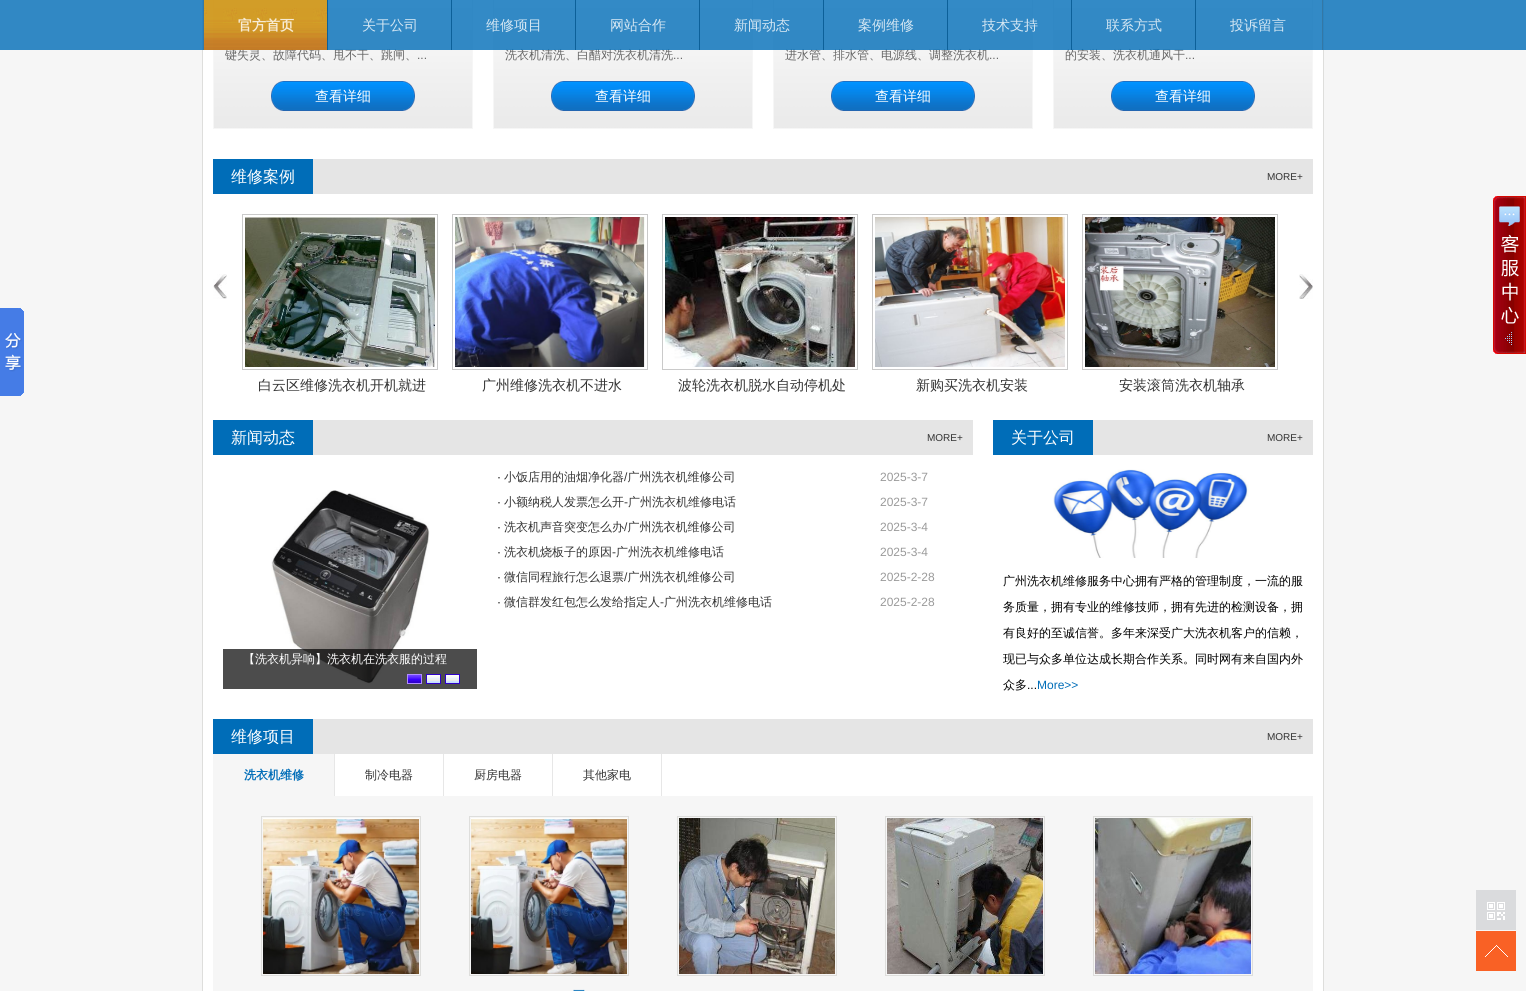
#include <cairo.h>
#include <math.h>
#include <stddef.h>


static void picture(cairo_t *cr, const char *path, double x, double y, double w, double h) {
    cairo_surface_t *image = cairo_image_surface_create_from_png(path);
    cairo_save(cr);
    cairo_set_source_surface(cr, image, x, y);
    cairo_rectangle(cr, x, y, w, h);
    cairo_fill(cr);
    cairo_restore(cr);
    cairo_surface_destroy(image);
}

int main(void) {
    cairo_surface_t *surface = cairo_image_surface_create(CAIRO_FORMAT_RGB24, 1526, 991);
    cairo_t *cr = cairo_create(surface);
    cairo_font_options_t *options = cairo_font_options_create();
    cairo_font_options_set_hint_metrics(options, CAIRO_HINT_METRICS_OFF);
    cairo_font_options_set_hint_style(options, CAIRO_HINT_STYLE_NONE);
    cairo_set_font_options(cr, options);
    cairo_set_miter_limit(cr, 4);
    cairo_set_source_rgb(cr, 0.961, 0.961, 0.961);
    cairo_paint(cr);
    cairo_set_source_rgb(cr, 1, 1, 1);
    cairo_rectangle(cr, 202.5, -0.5, 1121, 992);
    cairo_fill_preserve(cr);
    cairo_set_source_rgb(cr, 0.871, 0.871, 0.863);
    cairo_set_line_width(cr, 1);
    cairo_stroke(cr);
    picture(cr, "img3.png", 214, 8, 258, 120);
    cairo_rectangle(cr, 213.5, -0.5, 259, 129);
    cairo_set_source_rgb(cr, 0.961, 0.961, 0.961);
    cairo_stroke(cr);
    cairo_select_font_face(cr, "WenQuanYi Zen Hei Medium", CAIRO_FONT_SLANT_NORMAL, CAIRO_FONT_WEIGHT_NORMAL);
    cairo_set_font_size(cr, 12);
    cairo_set_source_rgb(cr, 0.4, 0.4, 0.4);
    cairo_move_to(cr, 225, 59);
    cairo_show_text(cr, "键失灵、故障代码、甩不干、跳闸、");
    picture(cr, "img3.png", 494, 8, 258, 120);
    cairo_rectangle(cr, 493.5, -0.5, 259, 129);
    cairo_set_source_rgb(cr, 0.961, 0.961, 0.961);
    cairo_stroke(cr);
    cairo_set_source_rgb(cr, 0.4, 0.4, 0.4);
    cairo_move_to(cr, 505, 59);
    cairo_show_text(cr, "洗衣机清洗、白醋对洗衣机清洗");
    picture(cr, "img3.png", 774, 8, 258, 120);
    cairo_rectangle(cr, 773.5, -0.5, 259, 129);
    cairo_set_source_rgb(cr, 0.961, 0.961, 0.961);
    cairo_stroke(cr);
    cairo_set_source_rgb(cr, 0.4, 0.4, 0.4);
    cairo_move_to(cr, 785, 59);
    cairo_show_text(cr, "进水管、排水管、电源线、调整洗衣机");
    picture(cr, "img3.png", 1054, 8, 258, 120);
    cairo_rectangle(cr, 1053.5, -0.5, 259, 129);
    cairo_set_source_rgb(cr, 0.961, 0.961, 0.961);
    cairo_stroke(cr);
    cairo_set_source_rgb(cr, 0.4, 0.4, 0.4);
    cairo_move_to(cr, 1065, 59);
    cairo_show_text(cr, "的安装、洗衣机通风干");
    cairo_set_source_rgba(cr, 0, 0.427, 0.722, 0.8);
    cairo_rectangle(cr, 0, 0, 1526, 50);
    cairo_fill(cr);
    cairo_set_source_rgb(cr, 0.208, 0.471, 0.647);
    cairo_rectangle(cr, 1322, 0, 1, 50);
    cairo_fill(cr);
    picture(cr, "img1.png", 204, 0, 123, 50);
    cairo_rectangle(cr, 203, 0, 1, 50);
    cairo_fill(cr);
    cairo_select_font_face(cr, "WenQuanYi Zen Hei", CAIRO_FONT_SLANT_NORMAL, CAIRO_FONT_WEIGHT_BOLD);
    cairo_set_font_size(cr, 14);
    cairo_set_source_rgb(cr, 0.965, 0.918, 0.831);
    cairo_move_to(cr, 238, 30);
    cairo_show_text(cr, "官方首页");
    cairo_set_source_rgba(cr, 0.012, 0.337, 0.561, 0.8);
    cairo_rectangle(cr, 327, 0, 1, 50);
    cairo_fill(cr);
    cairo_select_font_face(cr, "WenQuanYi Zen Hei Medium", CAIRO_FONT_SLANT_NORMAL, CAIRO_FONT_WEIGHT_NORMAL);
    cairo_set_source_rgb(cr, 0.835, 0.906, 0.953);
    cairo_move_to(cr, 362, 30);
    cairo_show_text(cr, "关于公司");
    cairo_set_source_rgba(cr, 0.012, 0.337, 0.561, 0.8);
    cairo_rectangle(cr, 451, 0, 1, 50);
    cairo_fill(cr);
    cairo_set_source_rgb(cr, 0.835, 0.906, 0.953);
    cairo_move_to(cr, 486, 30);
    cairo_show_text(cr, "维修项目");
    cairo_set_source_rgba(cr, 0.012, 0.337, 0.561, 0.8);
    cairo_rectangle(cr, 575, 0, 1, 50);
    cairo_fill(cr);
    cairo_set_source_rgb(cr, 0.835, 0.906, 0.953);
    cairo_move_to(cr, 610, 30);
    cairo_show_text(cr, "网站合作");
    cairo_set_source_rgba(cr, 0.012, 0.337, 0.561, 0.8);
    cairo_rectangle(cr, 699, 0, 1, 50);
    cairo_fill(cr);
    cairo_set_source_rgb(cr, 0.835, 0.906, 0.953);
    cairo_move_to(cr, 734, 30);
    cairo_show_text(cr, "新闻动态");
    cairo_set_source_rgba(cr, 0.012, 0.337, 0.561, 0.8);
    cairo_rectangle(cr, 823, 0, 1, 50);
    cairo_fill(cr);
    cairo_set_source_rgb(cr, 0.835, 0.906, 0.953);
    cairo_move_to(cr, 858, 30);
    cairo_show_text(cr, "案例维修");
    cairo_set_source_rgba(cr, 0.012, 0.337, 0.561, 0.8);
    cairo_rectangle(cr, 947, 0, 1, 50);
    cairo_fill(cr);
    cairo_set_source_rgb(cr, 0.835, 0.906, 0.953);
    cairo_move_to(cr, 982, 30);
    cairo_show_text(cr, "技术支持");
    cairo_set_source_rgba(cr, 0.012, 0.337, 0.561, 0.8);
    cairo_rectangle(cr, 1071, 0, 1, 50);
    cairo_fill(cr);
    cairo_set_source_rgb(cr, 0.835, 0.906, 0.953);
    cairo_move_to(cr, 1106, 30);
    cairo_show_text(cr, "联系方式");
    cairo_set_source_rgba(cr, 0.012, 0.337, 0.561, 0.8);
    cairo_rectangle(cr, 1195, 0, 1, 50);
    cairo_fill(cr);
    cairo_set_source_rgb(cr, 0.835, 0.906, 0.953);
    cairo_move_to(cr, 1230, 30);
    cairo_show_text(cr, "投诉留言");
    picture(cr, "img2.png", 0, 308, 24, 88);
    cairo_select_font_face(cr, "Liberation Sans", CAIRO_FONT_SLANT_NORMAL, CAIRO_FONT_WEIGHT_NORMAL);
    cairo_set_font_size(cr, 12);
    cairo_set_source_rgb(cr, 0.4, 0.4, 0.4);
    cairo_move_to(cr, 417, 59);
    cairo_show_text(cr, "...");
    picture(cr, "img4.png", 271, 81, 144, 30);
    cairo_select_font_face(cr, "WenQuanYi Zen Hei Medium", CAIRO_FONT_SLANT_NORMAL, CAIRO_FONT_WEIGHT_NORMAL);
    cairo_set_font_size(cr, 14);
    cairo_set_source_rgb(cr, 1, 1, 1);
    cairo_move_to(cr, 315, 101);
    cairo_show_text(cr, "查看详细");
    cairo_select_font_face(cr, "Liberation Sans", CAIRO_FONT_SLANT_NORMAL, CAIRO_FONT_WEIGHT_NORMAL);
    cairo_set_font_size(cr, 12);
    cairo_set_source_rgb(cr, 0.4, 0.4, 0.4);
    cairo_move_to(cr, 673, 59);
    cairo_show_text(cr, "...");
    picture(cr, "img4.png", 551, 81, 144, 30);
    cairo_select_font_face(cr, "WenQuanYi Zen Hei Medium", CAIRO_FONT_SLANT_NORMAL, CAIRO_FONT_WEIGHT_NORMAL);
    cairo_set_font_size(cr, 14);
    cairo_set_source_rgb(cr, 1, 1, 1);
    cairo_move_to(cr, 595, 101);
    cairo_show_text(cr, "查看详细");
    cairo_select_font_face(cr, "Liberation Sans", CAIRO_FONT_SLANT_NORMAL, CAIRO_FONT_WEIGHT_NORMAL);
    cairo_set_font_size(cr, 12);
    cairo_set_source_rgb(cr, 0.4, 0.4, 0.4);
    cairo_move_to(cr, 989, 59);
    cairo_show_text(cr, "...");
    picture(cr, "img4.png", 831, 81, 144, 30);
    cairo_select_font_face(cr, "WenQuanYi Zen Hei Medium", CAIRO_FONT_SLANT_NORMAL, CAIRO_FONT_WEIGHT_NORMAL);
    cairo_set_font_size(cr, 14);
    cairo_set_source_rgb(cr, 1, 1, 1);
    cairo_move_to(cr, 875, 101);
    cairo_show_text(cr, "查看详细");
    cairo_select_font_face(cr, "Liberation Sans", CAIRO_FONT_SLANT_NORMAL, CAIRO_FONT_WEIGHT_NORMAL);
    cairo_set_font_size(cr, 12);
    cairo_set_source_rgb(cr, 0.4, 0.4, 0.4);
    cairo_move_to(cr, 1185, 59);
    cairo_show_text(cr, "...");
    picture(cr, "img4.png", 1111, 81, 144, 30);
    cairo_select_font_face(cr, "WenQuanYi Zen Hei Medium", CAIRO_FONT_SLANT_NORMAL, CAIRO_FONT_WEIGHT_NORMAL);
    cairo_set_font_size(cr, 14);
    cairo_set_source_rgb(cr, 1, 1, 1);
    cairo_move_to(cr, 1155, 101);
    cairo_show_text(cr, "查看详细");
    cairo_set_source_rgb(cr, 0.898, 0.898, 0.898);
    cairo_rectangle(cr, 313, 159, 1000, 35);
    cairo_fill(cr);
    cairo_set_source_rgb(cr, 0, 0.427, 0.722);
    cairo_rectangle(cr, 213, 159, 100, 35);
    cairo_fill(cr);
    cairo_set_font_size(cr, 16);
    cairo_set_source_rgb(cr, 1, 1, 1);
    cairo_move_to(cr, 231, 182);
    cairo_show_text(cr, "维修案例");
    cairo_select_font_face(cr, "Liberation Sans", CAIRO_FONT_SLANT_NORMAL, CAIRO_FONT_WEIGHT_NORMAL);
    cairo_set_font_size(cr, 10);
    cairo_set_source_rgb(cr, 0.2, 0.2, 0.2);
    cairo_move_to(cr, 1267, 180);
    cairo_show_text(cr, "MORE+");
    picture(cr, "img5.png", 213, 274, 14, 25);
    picture(cr, "img6.png", 1299, 274, 14, 25);
    cairo_rectangle(cr, 242.5, 214.5, 195, 155);
    cairo_set_source_rgb(cr, 0.792, 0.792, 0.792);
    cairo_stroke(cr);
    picture(cr, "img7.png", 245, 217, 190, 150);
    cairo_select_font_face(cr, "WenQuanYi Zen Hei Medium", CAIRO_FONT_SLANT_NORMAL, CAIRO_FONT_WEIGHT_NORMAL);
    cairo_set_font_size(cr, 14);
    cairo_set_source_rgb(cr, 0.2, 0.2, 0.2);
    cairo_move_to(cr, 258, 390);
    cairo_show_text(cr, "白云区维修洗衣机开机就进");
    cairo_rectangle(cr, 452.5, 214.5, 195, 155);
    cairo_set_source_rgb(cr, 0.792, 0.792, 0.792);
    cairo_stroke(cr);
    picture(cr, "img8.png", 455, 217, 190, 150);
    cairo_set_source_rgb(cr, 0.2, 0.2, 0.2);
    cairo_move_to(cr, 482, 390);
    cairo_show_text(cr, "广州维修洗衣机不进水");
    cairo_rectangle(cr, 662.5, 214.5, 195, 155);
    cairo_set_source_rgb(cr, 0.792, 0.792, 0.792);
    cairo_stroke(cr);
    picture(cr, "img9.png", 665, 217, 190, 150);
    cairo_set_source_rgb(cr, 0.2, 0.2, 0.2);
    cairo_move_to(cr, 678, 390);
    cairo_show_text(cr, "波轮洗衣机脱水自动停机处");
    cairo_rectangle(cr, 872.5, 214.5, 195, 155);
    cairo_set_source_rgb(cr, 0.792, 0.792, 0.792);
    cairo_stroke(cr);
    picture(cr, "img10.png", 875, 217, 190, 150);
    cairo_set_source_rgb(cr, 0.2, 0.2, 0.2);
    cairo_move_to(cr, 916, 390);
    cairo_show_text(cr, "新购买洗衣机安装");
    cairo_rectangle(cr, 1082.5, 214.5, 195, 155);
    cairo_set_source_rgb(cr, 0.792, 0.792, 0.792);
    cairo_stroke(cr);
    picture(cr, "img11.png", 1085, 217, 190, 150);
    cairo_set_source_rgb(cr, 0.2, 0.2, 0.2);
    cairo_move_to(cr, 1119, 390);
    cairo_show_text(cr, "安装滚筒洗衣机轴承");
    cairo_set_source_rgb(cr, 0.898, 0.898, 0.898);
    cairo_rectangle(cr, 313, 420, 660, 35);
    cairo_fill(cr);
    cairo_set_source_rgb(cr, 0, 0.427, 0.722);
    cairo_rectangle(cr, 213, 420, 100, 35);
    cairo_fill(cr);
    cairo_set_font_size(cr, 16);
    cairo_set_source_rgb(cr, 1, 1, 1);
    cairo_move_to(cr, 231, 443);
    cairo_show_text(cr, "新闻动态");
    cairo_select_font_face(cr, "Liberation Sans", CAIRO_FONT_SLANT_NORMAL, CAIRO_FONT_WEIGHT_NORMAL);
    cairo_set_font_size(cr, 10);
    cairo_set_source_rgb(cr, 0.2, 0.2, 0.2);
    cairo_move_to(cr, 927, 441);
    cairo_show_text(cr, "MORE+");
    cairo_select_font_face(cr, "WenQuanYi Zen Hei Medium", CAIRO_FONT_SLANT_NORMAL, CAIRO_FONT_WEIGHT_NORMAL);
    cairo_set_font_size(cr, 12);
    cairo_move_to(cr, 504, 481);
    cairo_show_text(cr, "小饭店用的油烟净化器 广州洗衣机维修公司");
    cairo_select_font_face(cr, "Liberation Sans", CAIRO_FONT_SLANT_NORMAL, CAIRO_FONT_WEIGHT_NORMAL);
    cairo_set_source_rgb(cr, 0, 0, 0);
    cairo_move_to(cr, 497, 481);
    cairo_show_text(cr, "·");
    cairo_set_source_rgb(cr, 0.2, 0.2, 0.2);
    cairo_move_to(cr, 624, 481);
    cairo_show_text(cr, "/");
    cairo_set_source_rgb(cr, 0.604, 0.604, 0.604);
    cairo_move_to(cr, 880, 481);
    cairo_show_text(cr, "2025-3-7");
    cairo_set_source_rgb(cr, 0, 0, 0);
    cairo_move_to(cr, 497, 506);
    cairo_show_text(cr, "·");
    cairo_select_font_face(cr, "WenQuanYi Zen Hei Medium", CAIRO_FONT_SLANT_NORMAL, CAIRO_FONT_WEIGHT_NORMAL);
    cairo_set_source_rgb(cr, 0.2, 0.2, 0.2);
    cairo_move_to(cr, 504, 506);
    cairo_show_text(cr, "小额纳税人发票怎么开");
    cairo_select_font_face(cr, "Liberation Sans", CAIRO_FONT_SLANT_NORMAL, CAIRO_FONT_WEIGHT_NORMAL);
    cairo_move_to(cr, 624, 506);
    cairo_show_text(cr, "-");
    cairo_select_font_face(cr, "WenQuanYi Zen Hei Medium", CAIRO_FONT_SLANT_NORMAL, CAIRO_FONT_WEIGHT_NORMAL);
    cairo_move_to(cr, 628, 506);
    cairo_show_text(cr, "广州洗衣机维修电话");
    cairo_select_font_face(cr, "Liberation Sans", CAIRO_FONT_SLANT_NORMAL, CAIRO_FONT_WEIGHT_NORMAL);
    cairo_set_source_rgb(cr, 0.604, 0.604, 0.604);
    cairo_move_to(cr, 880, 506);
    cairo_show_text(cr, "2025-3-7");
    cairo_select_font_face(cr, "WenQuanYi Zen Hei Medium", CAIRO_FONT_SLANT_NORMAL, CAIRO_FONT_WEIGHT_NORMAL);
    cairo_set_source_rgb(cr, 0.2, 0.2, 0.2);
    cairo_move_to(cr, 504, 531);
    cairo_show_text(cr, "洗衣机声音突变怎么办 广州洗衣机维修公司");
    cairo_select_font_face(cr, "Liberation Sans", CAIRO_FONT_SLANT_NORMAL, CAIRO_FONT_WEIGHT_NORMAL);
    cairo_set_source_rgb(cr, 0, 0, 0);
    cairo_move_to(cr, 497, 531);
    cairo_show_text(cr, "·");
    cairo_set_source_rgb(cr, 0.2, 0.2, 0.2);
    cairo_move_to(cr, 624, 531);
    cairo_show_text(cr, "/");
    cairo_set_source_rgb(cr, 0.604, 0.604, 0.604);
    cairo_move_to(cr, 880, 531);
    cairo_show_text(cr, "2025-3-4");
    cairo_set_source_rgb(cr, 0, 0, 0);
    cairo_move_to(cr, 497, 556);
    cairo_show_text(cr, "·");
    cairo_select_font_face(cr, "WenQuanYi Zen Hei Medium", CAIRO_FONT_SLANT_NORMAL, CAIRO_FONT_WEIGHT_NORMAL);
    cairo_set_source_rgb(cr, 0.2, 0.2, 0.2);
    cairo_move_to(cr, 504, 556);
    cairo_show_text(cr, "洗衣机烧板子的原因");
    cairo_select_font_face(cr, "Liberation Sans", CAIRO_FONT_SLANT_NORMAL, CAIRO_FONT_WEIGHT_NORMAL);
    cairo_move_to(cr, 612, 556);
    cairo_show_text(cr, "-");
    cairo_select_font_face(cr, "WenQuanYi Zen Hei Medium", CAIRO_FONT_SLANT_NORMAL, CAIRO_FONT_WEIGHT_NORMAL);
    cairo_move_to(cr, 616, 556);
    cairo_show_text(cr, "广州洗衣机维修电话");
    cairo_select_font_face(cr, "Liberation Sans", CAIRO_FONT_SLANT_NORMAL, CAIRO_FONT_WEIGHT_NORMAL);
    cairo_set_source_rgb(cr, 0.604, 0.604, 0.604);
    cairo_move_to(cr, 880, 556);
    cairo_show_text(cr, "2025-3-4");
    cairo_select_font_face(cr, "WenQuanYi Zen Hei Medium", CAIRO_FONT_SLANT_NORMAL, CAIRO_FONT_WEIGHT_NORMAL);
    cairo_set_source_rgb(cr, 0.2, 0.2, 0.2);
    cairo_move_to(cr, 504, 581);
    cairo_show_text(cr, "微信同程旅行怎么退票 广州洗衣机维修公司");
    cairo_select_font_face(cr, "Liberation Sans", CAIRO_FONT_SLANT_NORMAL, CAIRO_FONT_WEIGHT_NORMAL);
    cairo_set_source_rgb(cr, 0, 0, 0);
    cairo_move_to(cr, 497, 581);
    cairo_show_text(cr, "·");
    cairo_set_source_rgb(cr, 0.2, 0.2, 0.2);
    cairo_move_to(cr, 624, 581);
    cairo_show_text(cr, "/");
    cairo_set_source_rgb(cr, 0.604, 0.604, 0.604);
    cairo_move_to(cr, 880, 581);
    cairo_show_text(cr, "2025-2-28");
    cairo_set_source_rgb(cr, 0, 0, 0);
    cairo_move_to(cr, 497, 606);
    cairo_show_text(cr, "·");
    cairo_select_font_face(cr, "WenQuanYi Zen Hei Medium", CAIRO_FONT_SLANT_NORMAL, CAIRO_FONT_WEIGHT_NORMAL);
    cairo_set_source_rgb(cr, 0.2, 0.2, 0.2);
    cairo_move_to(cr, 504, 606);
    cairo_show_text(cr, "微信群发红包怎么发给指定人");
    cairo_select_font_face(cr, "Liberation Sans", CAIRO_FONT_SLANT_NORMAL, CAIRO_FONT_WEIGHT_NORMAL);
    cairo_move_to(cr, 660, 606);
    cairo_show_text(cr, "-");
    cairo_select_font_face(cr, "WenQuanYi Zen Hei Medium", CAIRO_FONT_SLANT_NORMAL, CAIRO_FONT_WEIGHT_NORMAL);
    cairo_move_to(cr, 664, 606);
    cairo_show_text(cr, "广州洗衣机维修电话");
    cairo_select_font_face(cr, "Liberation Sans", CAIRO_FONT_SLANT_NORMAL, CAIRO_FONT_WEIGHT_NORMAL);
    cairo_set_source_rgb(cr, 0.604, 0.604, 0.604);
    cairo_move_to(cr, 880, 606);
    cairo_show_text(cr, "2025-2-28");
    picture(cr, "img12.png", 271, 490, 159, 194);
    cairo_set_source_rgba(cr, 0, 0, 0, 0.7);
    cairo_rectangle(cr, 223, 649, 254, 40);
    cairo_fill(cr);
    cairo_select_font_face(cr, "WenQuanYi Zen Hei Medium", CAIRO_FONT_SLANT_NORMAL, CAIRO_FONT_WEIGHT_NORMAL);
    cairo_set_source_rgb(cr, 1, 1, 1);
    cairo_move_to(cr, 243, 663);
    cairo_show_text(cr, "【洗衣机异响】洗衣机在洗衣服的过程");
    picture(cr, "img13.png", 407, 674, 15, 10);
    picture(cr, "img14.png", 426, 674, 15, 10);
    picture(cr, "img14.png", 445, 674, 15, 10);
    cairo_set_source_rgb(cr, 0.898, 0.898, 0.898);
    cairo_rectangle(cr, 1093, 420, 220, 35);
    cairo_fill(cr);
    cairo_set_source_rgb(cr, 0, 0.427, 0.722);
    cairo_rectangle(cr, 993, 420, 100, 35);
    cairo_fill(cr);
    cairo_set_font_size(cr, 16);
    cairo_set_source_rgb(cr, 1, 1, 1);
    cairo_move_to(cr, 1011, 443);
    cairo_show_text(cr, "关于公司");
    cairo_select_font_face(cr, "Liberation Sans", CAIRO_FONT_SLANT_NORMAL, CAIRO_FONT_WEIGHT_NORMAL);
    cairo_set_font_size(cr, 10);
    cairo_set_source_rgb(cr, 0.2, 0.2, 0.2);
    cairo_move_to(cr, 1267, 441);
    cairo_show_text(cr, "MORE+");
    picture(cr, "img15.png", 1053, 469, 196, 89);
    cairo_select_font_face(cr, "WenQuanYi Zen Hei Medium", CAIRO_FONT_SLANT_NORMAL, CAIRO_FONT_WEIGHT_NORMAL);
    cairo_set_font_size(cr, 12);
    cairo_set_source_rgb(cr, 0, 0, 0);
    cairo_move_to(cr, 1003, 585);
    cairo_show_text(cr, "广州洗衣机维修服务中心拥有严格的管理制度，一流的服");
    cairo_move_to(cr, 1003, 611);
    cairo_show_text(cr, "务质量，拥有专业的维修技师，拥有先进的检测设备，拥");
    cairo_move_to(cr, 1003, 637);
    cairo_show_text(cr, "有良好的至诚信誉。多年来深受广大洗衣机客户的信赖，");
    cairo_move_to(cr, 1003, 663);
    cairo_show_text(cr, "现已与众多单位达成长期合作关系。同时网有来自国内外");
    cairo_move_to(cr, 1003, 689);
    cairo_show_text(cr, "众多");
    cairo_select_font_face(cr, "Liberation Sans", CAIRO_FONT_SLANT_NORMAL, CAIRO_FONT_WEIGHT_NORMAL);
    cairo_move_to(cr, 1027, 689);
    cairo_show_text(cr, "...");
    cairo_set_source_rgb(cr, 0, 0.427, 0.722);
    cairo_move_to(cr, 1037, 689);
    cairo_show_text(cr, "More>>");
    cairo_set_source_rgb(cr, 0.898, 0.898, 0.898);
    cairo_rectangle(cr, 313, 719, 1000, 35);
    cairo_fill(cr);
    cairo_set_source_rgb(cr, 0, 0.427, 0.722);
    cairo_rectangle(cr, 213, 719, 100, 35);
    cairo_fill(cr);
    cairo_select_font_face(cr, "WenQuanYi Zen Hei Medium", CAIRO_FONT_SLANT_NORMAL, CAIRO_FONT_WEIGHT_NORMAL);
    cairo_set_font_size(cr, 16);
    cairo_set_source_rgb(cr, 1, 1, 1);
    cairo_move_to(cr, 231, 742);
    cairo_show_text(cr, "维修项目");
    cairo_select_font_face(cr, "Liberation Sans", CAIRO_FONT_SLANT_NORMAL, CAIRO_FONT_WEIGHT_NORMAL);
    cairo_set_font_size(cr, 10);
    cairo_set_source_rgb(cr, 0.2, 0.2, 0.2);
    cairo_move_to(cr, 1267, 740);
    cairo_show_text(cr, "MORE+");
    cairo_set_source_rgb(cr, 0.961, 0.961, 0.961);
    cairo_rectangle(cr, 213, 796, 1100, 195);
    cairo_fill(cr);
    cairo_rectangle(cr, 213, 754, 121, 42);
    cairo_fill(cr);
    cairo_set_source_rgb(cr, 0.906, 0.906, 0.906);
    cairo_rectangle(cr, 334, 754, 1, 42);
    cairo_fill(cr);
    cairo_select_font_face(cr, "WenQuanYi Zen Hei", CAIRO_FONT_SLANT_NORMAL, CAIRO_FONT_WEIGHT_BOLD);
    cairo_set_font_size(cr, 12);
    cairo_set_source_rgb(cr, 0, 0.427, 0.722);
    cairo_move_to(cr, 244, 779);
    cairo_show_text(cr, "洗衣机维修");
    cairo_set_source_rgb(cr, 0.906, 0.906, 0.906);
    cairo_rectangle(cr, 443, 754, 1, 42);
    cairo_fill(cr);
    cairo_select_font_face(cr, "WenQuanYi Zen Hei Medium", CAIRO_FONT_SLANT_NORMAL, CAIRO_FONT_WEIGHT_NORMAL);
    cairo_set_source_rgb(cr, 0.2, 0.2, 0.2);
    cairo_move_to(cr, 365, 779);
    cairo_show_text(cr, "制冷电器");
    cairo_set_source_rgb(cr, 0.906, 0.906, 0.906);
    cairo_rectangle(cr, 552, 754, 1, 42);
    cairo_fill(cr);
    cairo_set_source_rgb(cr, 0.2, 0.2, 0.2);
    cairo_move_to(cr, 474, 779);
    cairo_show_text(cr, "厨房电器");
    cairo_set_source_rgb(cr, 0.906, 0.906, 0.906);
    cairo_rectangle(cr, 661, 754, 1, 42);
    cairo_fill(cr);
    cairo_set_source_rgb(cr, 0.2, 0.2, 0.2);
    cairo_move_to(cr, 583, 779);
    cairo_show_text(cr, "其他家电");
    cairo_rectangle(cr, 261.5, 816.5, 159, 159);
    cairo_set_source_rgb(cr, 0.871, 0.871, 0.863);
    cairo_stroke(cr);
    picture(cr, "img16.png", 263, 818, 156, 156);
    cairo_rectangle(cr, 677.5, 816.5, 159, 159);
    cairo_stroke(cr);
    picture(cr, "img17.png", 679, 818, 156, 156);
    cairo_rectangle(cr, 885.5, 816.5, 159, 159);
    cairo_stroke(cr);
    picture(cr, "img18.png", 887, 818, 156, 156);
    cairo_rectangle(cr, 1093.5, 816.5, 159, 159);
    cairo_stroke(cr);
    picture(cr, "img19.png", 1095, 818, 156, 156);
    cairo_rectangle(cr, 469.5, 816.5, 159, 159);
    cairo_stroke(cr);
    picture(cr, "img16.png", 471, 818, 156, 156);
    cairo_set_source_rgb(cr, 0, 0.427, 0.722);
    cairo_move_to(cr, 573, 995);
    cairo_show_text(cr, "一");
    picture(cr, "img20.png", 1493, 196, 33, 158);
    cairo_set_source_rgb(cr, 0.855, 0.859, 0.867);
    cairo_rectangle(cr, 1476, 890, 40, 40);
    cairo_fill(cr);
    picture(cr, "img21.png", 1487, 902, 18, 18);
    cairo_set_source_rgb(cr, 0.976, 0.38, 0.145);
    cairo_rectangle(cr, 1476, 931, 40, 40);
    cairo_fill(cr);
    picture(cr, "img22.png", 1485, 945, 23, 12);
    cairo_surface_write_to_png(surface, "page.png");
    cairo_font_options_destroy(options);
    cairo_destroy(cr);
    cairo_surface_destroy(surface);
    return 0;
}
